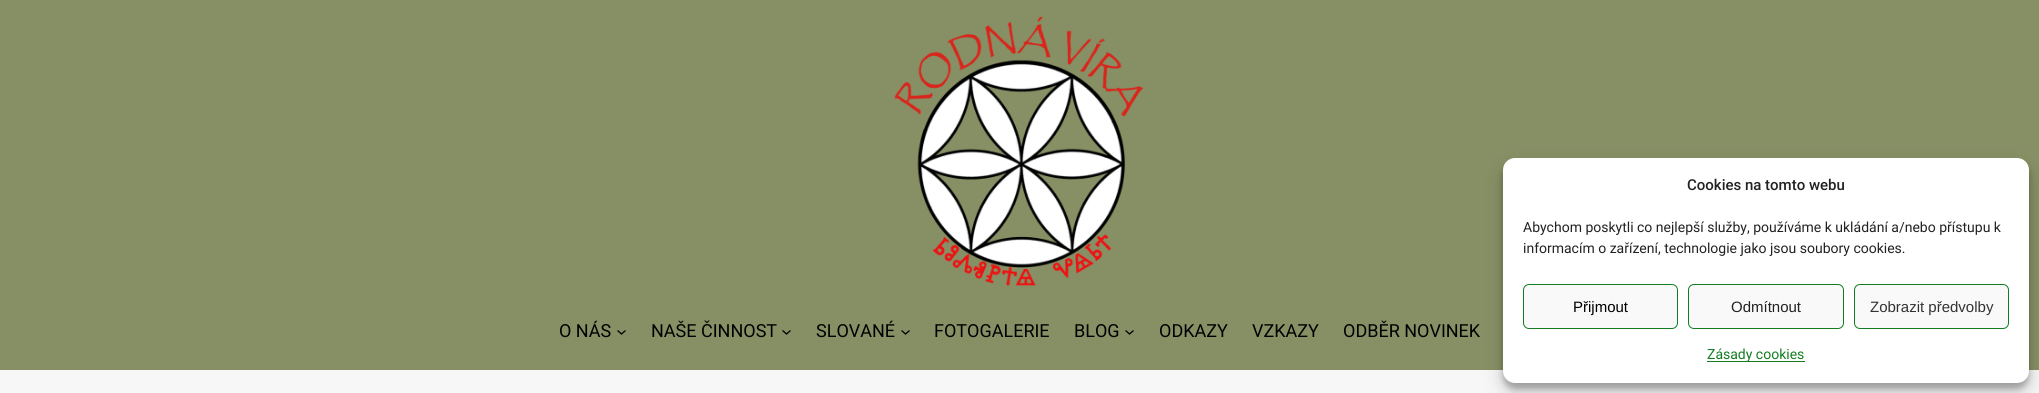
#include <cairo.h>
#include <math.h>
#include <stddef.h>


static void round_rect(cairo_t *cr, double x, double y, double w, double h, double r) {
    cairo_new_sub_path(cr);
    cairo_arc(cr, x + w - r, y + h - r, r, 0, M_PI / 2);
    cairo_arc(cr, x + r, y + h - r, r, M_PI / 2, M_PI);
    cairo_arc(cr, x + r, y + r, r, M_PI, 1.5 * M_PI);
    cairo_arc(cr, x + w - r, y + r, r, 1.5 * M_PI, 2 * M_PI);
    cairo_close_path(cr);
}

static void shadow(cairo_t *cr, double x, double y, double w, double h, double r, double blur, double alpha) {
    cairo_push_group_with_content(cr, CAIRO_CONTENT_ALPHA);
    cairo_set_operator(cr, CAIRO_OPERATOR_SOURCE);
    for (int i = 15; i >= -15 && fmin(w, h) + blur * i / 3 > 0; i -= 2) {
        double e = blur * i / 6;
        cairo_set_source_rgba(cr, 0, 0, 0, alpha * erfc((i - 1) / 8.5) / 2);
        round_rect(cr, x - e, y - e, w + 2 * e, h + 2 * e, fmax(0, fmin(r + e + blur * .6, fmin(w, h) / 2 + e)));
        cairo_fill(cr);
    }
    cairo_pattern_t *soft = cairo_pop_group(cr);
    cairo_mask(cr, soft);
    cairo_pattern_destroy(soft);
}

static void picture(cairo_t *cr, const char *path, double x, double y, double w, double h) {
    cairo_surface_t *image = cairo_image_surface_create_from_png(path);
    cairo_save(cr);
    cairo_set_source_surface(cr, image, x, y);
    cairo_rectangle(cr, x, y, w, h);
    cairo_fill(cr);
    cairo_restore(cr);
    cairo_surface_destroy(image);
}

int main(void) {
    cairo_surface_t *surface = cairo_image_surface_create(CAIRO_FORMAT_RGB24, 2039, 393);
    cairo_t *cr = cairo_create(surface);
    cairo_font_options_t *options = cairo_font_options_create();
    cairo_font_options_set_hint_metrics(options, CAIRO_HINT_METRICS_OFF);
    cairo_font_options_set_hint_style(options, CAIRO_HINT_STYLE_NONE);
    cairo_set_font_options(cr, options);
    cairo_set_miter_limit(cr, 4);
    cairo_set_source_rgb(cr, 0.529, 0.565, 0.396);
    cairo_paint(cr);
    picture(cr, "img1.png", 894, 16, 250, 270);
    cairo_select_font_face(cr, "Roboto", CAIRO_FONT_SLANT_NORMAL, CAIRO_FONT_WEIGHT_NORMAL);
    cairo_set_font_size(cr, 18);
    cairo_set_source_rgb(cr, 0, 0, 0);
    cairo_move_to(cr, 559, 337);
    cairo_show_text(cr, "O NÁS");
    cairo_new_path(cr);
    cairo_move_to(cr, 617.5, 330.5);
    cairo_line_to(cr, 621.5, 334);
    cairo_line_to(cr, 625.5, 330.5);
    cairo_set_line_width(cr, 1.3);
    cairo_stroke(cr);
    cairo_move_to(cr, 651, 337);
    cairo_show_text(cr, "NAŠE ČINNOST");
    cairo_new_path(cr);
    cairo_move_to(cr, 782.5, 330.5);
    cairo_line_to(cr, 786.5, 334);
    cairo_line_to(cr, 790.5, 330.5);
    cairo_stroke(cr);
    cairo_move_to(cr, 816, 337);
    cairo_show_text(cr, "SLOVANÉ");
    cairo_new_path(cr);
    cairo_move_to(cr, 901.5, 330.5);
    cairo_line_to(cr, 905.5, 334);
    cairo_line_to(cr, 909.5, 330.5);
    cairo_stroke(cr);
    cairo_move_to(cr, 934, 337);
    cairo_show_text(cr, "FOTOGALERIE");
    cairo_move_to(cr, 1074, 337);
    cairo_show_text(cr, "BLOG");
    cairo_new_path(cr);
    cairo_move_to(cr, 1125.5, 330.5);
    cairo_line_to(cr, 1129.5, 334);
    cairo_line_to(cr, 1133.5, 330.5);
    cairo_stroke(cr);
    cairo_move_to(cr, 1159, 337);
    cairo_show_text(cr, "ODKAZY");
    cairo_move_to(cr, 1252, 337);
    cairo_show_text(cr, "VZKAZY");
    cairo_move_to(cr, 1343, 337);
    cairo_show_text(cr, "ODBĚR NOVINEK");
    cairo_set_source_rgb(cr, 0.965, 0.965, 0.965);
    cairo_rectangle(cr, 0, 370, 2039, 23);
    cairo_fill(cr);
    cairo_set_source_rgb(cr, 0, 0, 0);
    shadow(cr, 1503, 164, 526, 225, 12, 3, 0.23);
    shadow(cr, 1503, 168, 526, 225, 12, 10, 0.19);
    cairo_set_source_rgb(cr, 1, 1, 1);
    round_rect(cr, 1503, 158, 526, 225, 12);
    cairo_fill(cr);
    cairo_select_font_face(cr, "Roboto Medium", CAIRO_FONT_SLANT_NORMAL, CAIRO_FONT_WEIGHT_NORMAL);
    cairo_set_font_size(cr, 15);
    cairo_set_source_rgb(cr, 0.133, 0.133, 0.133);
    cairo_move_to(cr, 1687, 190);
    cairo_show_text(cr, "Cookies na tomto webu");
    cairo_select_font_face(cr, "Roboto", CAIRO_FONT_SLANT_NORMAL, CAIRO_FONT_WEIGHT_NORMAL);
    cairo_set_font_size(cr, 14);
    cairo_move_to(cr, 1523, 232);
    cairo_show_text(cr, "Abychom poskytli co nejlepší služby, používáme k ukládání a/nebo přístupu k");
    cairo_move_to(cr, 1523, 253);
    cairo_show_text(cr, "informacím o zařízení, technologie jako jsou soubory cookies.");
    cairo_set_source_rgb(cr, 0.976, 0.976, 0.976);
    round_rect(cr, 1523.5, 284.5, 154, 44, 5.5);
    cairo_fill_preserve(cr);
    cairo_set_source_rgb(cr, 0.075, 0.486, 0.129);
    cairo_set_line_width(cr, 1);
    cairo_stroke(cr);
    cairo_select_font_face(cr, "Liberation Sans", CAIRO_FONT_SLANT_NORMAL, CAIRO_FONT_WEIGHT_NORMAL);
    cairo_set_font_size(cr, 15);
    cairo_set_source_rgb(cr, 0, 0, 0);
    cairo_move_to(cr, 1573, 312);
    cairo_show_text(cr, "Přijmout");
    cairo_set_source_rgb(cr, 0.976, 0.976, 0.976);
    round_rect(cr, 1688.5, 284.5, 155, 44, 5.5);
    cairo_fill_preserve(cr);
    cairo_set_source_rgb(cr, 0.075, 0.486, 0.129);
    cairo_stroke(cr);
    cairo_set_source_rgb(cr, 0.133, 0.133, 0.133);
    cairo_move_to(cr, 1731, 312);
    cairo_show_text(cr, "Odmítnout");
    cairo_set_source_rgb(cr, 0.976, 0.976, 0.976);
    round_rect(cr, 1854.5, 284.5, 154, 44, 5.5);
    cairo_fill_preserve(cr);
    cairo_set_source_rgb(cr, 0.075, 0.486, 0.129);
    cairo_stroke(cr);
    cairo_set_source_rgb(cr, 0.2, 0.2, 0.2);
    cairo_move_to(cr, 1870, 312);
    cairo_show_text(cr, "Zobrazit předvolby");
    cairo_set_source_rgb(cr, 0.075, 0.486, 0.129);
    cairo_rectangle(cr, 1707, 361, 98, 1);
    cairo_fill(cr);
    cairo_select_font_face(cr, "Roboto", CAIRO_FONT_SLANT_NORMAL, CAIRO_FONT_WEIGHT_NORMAL);
    cairo_set_font_size(cr, 14);
    cairo_move_to(cr, 1707, 359);
    cairo_show_text(cr, "Zásady cookies");
    cairo_surface_write_to_png(surface, "page.png");
    cairo_font_options_destroy(options);
    cairo_destroy(cr);
    cairo_surface_destroy(surface);
    return 0;
}
